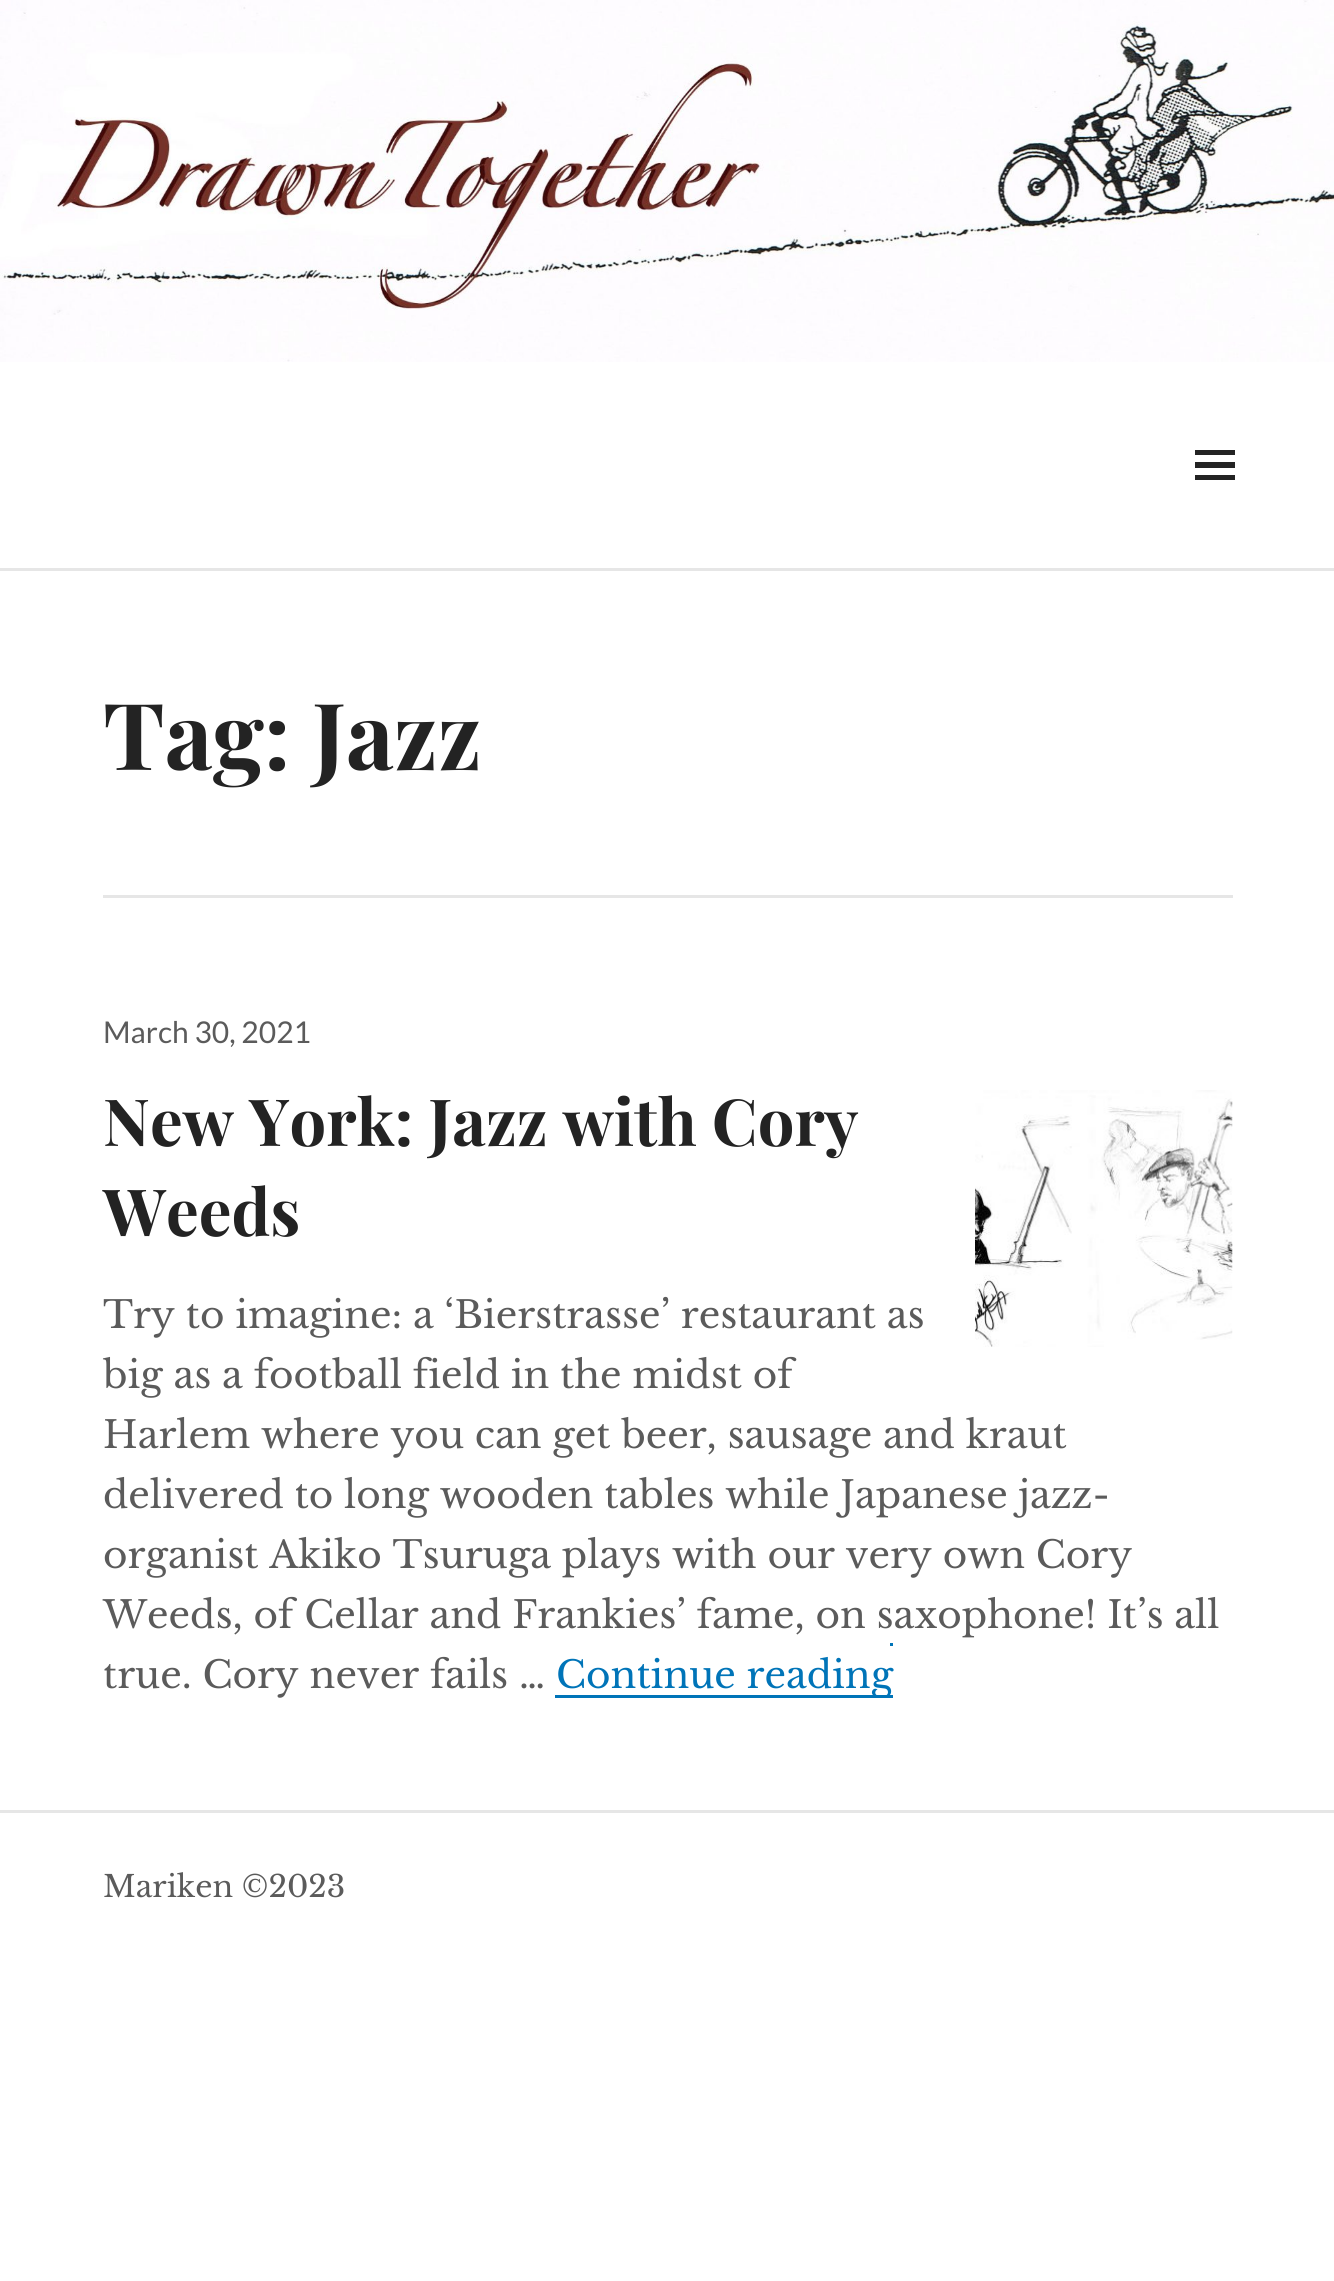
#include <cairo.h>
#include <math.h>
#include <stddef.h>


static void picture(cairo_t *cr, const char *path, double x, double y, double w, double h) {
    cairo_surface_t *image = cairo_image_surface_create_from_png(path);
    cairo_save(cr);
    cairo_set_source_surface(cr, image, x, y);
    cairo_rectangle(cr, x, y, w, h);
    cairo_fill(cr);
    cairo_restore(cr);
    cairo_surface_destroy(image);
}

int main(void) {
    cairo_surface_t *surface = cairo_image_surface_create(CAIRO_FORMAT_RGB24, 1334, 2281);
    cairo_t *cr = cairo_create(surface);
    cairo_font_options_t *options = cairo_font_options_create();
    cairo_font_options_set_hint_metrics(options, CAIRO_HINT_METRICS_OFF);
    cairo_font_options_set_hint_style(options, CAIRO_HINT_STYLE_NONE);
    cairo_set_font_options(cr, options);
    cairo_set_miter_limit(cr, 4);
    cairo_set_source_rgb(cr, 1, 1, 1);
    cairo_paint(cr);
    picture(cr, "img1.png", 0, 0, 1334, 362);
    cairo_set_source_rgb(cr, 0.902, 0.902, 0.902);
    cairo_rectangle(cr, 0, 568, 1334, 3);
    cairo_fill(cr);
    cairo_set_source_rgb(cr, 0.137, 0.137, 0.137);
    cairo_new_path(cr);
    cairo_move_to(cr, 1195, 480);
    cairo_line_to(cr, 1195, 475);
    cairo_line_to(cr, 1235, 475);
    cairo_line_to(cr, 1235, 480);
    cairo_close_path(cr);
    cairo_move_to(cr, 1195, 450);
    cairo_line_to(cr, 1235, 450);
    cairo_line_to(cr, 1235, 455);
    cairo_line_to(cr, 1195, 455);
    cairo_close_path(cr);
    cairo_move_to(cr, 1195, 468);
    cairo_line_to(cr, 1195, 462);
    cairo_line_to(cr, 1235, 462);
    cairo_line_to(cr, 1235, 468);
    cairo_close_path(cr);
    cairo_fill(cr);
    cairo_set_source_rgb(cr, 0.902, 0.902, 0.902);
    cairo_rectangle(cr, 103, 895, 1130, 3);
    cairo_fill(cr);
    cairo_select_font_face(cr, "Playfair Display", CAIRO_FONT_SLANT_NORMAL, CAIRO_FONT_WEIGHT_BOLD);
    cairo_set_font_size(cr, 92.5);
    cairo_set_source_rgb(cr, 0.137, 0.137, 0.137);
    cairo_move_to(cr, 103, 770);
    cairo_show_text(cr, "Tag: Jazz");
    cairo_select_font_face(cr, "Lato", CAIRO_FONT_SLANT_NORMAL, CAIRO_FONT_WEIGHT_NORMAL);
    cairo_set_font_size(cr, 30);
    cairo_set_source_rgb(cr, 0.357, 0.357, 0.357);
    cairo_move_to(cr, 103, 1043);
    cairo_show_text(cr, "March 30, 2021");
    cairo_select_font_face(cr, "Playfair Display", CAIRO_FONT_SLANT_NORMAL, CAIRO_FONT_WEIGHT_BOLD);
    cairo_set_font_size(cr, 65);
    cairo_set_source_rgb(cr, 0.137, 0.137, 0.137);
    cairo_move_to(cr, 103, 1146);
    cairo_show_text(cr, "New York: Jazz with Cory");
    cairo_move_to(cr, 103, 1236);
    cairo_show_text(cr, "Weeds");
    picture(cr, "img2.png", 975, 1090, 258, 257);
    cairo_select_font_face(cr, "Libre Baskerville", CAIRO_FONT_SLANT_NORMAL, CAIRO_FONT_WEIGHT_NORMAL);
    cairo_set_font_size(cr, 37.5);
    cairo_set_source_rgb(cr, 0.357, 0.357, 0.357);
    cairo_move_to(cr, 103, 1328);
    cairo_show_text(cr, "Try to imagine: a ‘Bierstrasse’ restaurant as");
    cairo_move_to(cr, 103, 1388);
    cairo_show_text(cr, "big as a football field in the midst of");
    cairo_move_to(cr, 103, 1448);
    cairo_show_text(cr, "Harlem where you can get beer, sausage and kraut");
    cairo_move_to(cr, 103, 1508);
    cairo_show_text(cr, "delivered to long wooden tables while Japanese jazz-");
    cairo_move_to(cr, 103, 1568);
    cairo_show_text(cr, "organist Akiko Tsuruga plays with our very own Cory");
    cairo_move_to(cr, 103, 1628);
    cairo_show_text(cr, "Weeds, of Cellar and Frankies’ fame, on saxophone! It’s all");
    cairo_move_to(cr, 103, 1688);
    cairo_show_text(cr, "true. Cory never fails …");
    cairo_set_source_rgb(cr, 0, 0.455, 0.722);
    cairo_rectangle(cr, 555, 1695, 338, 3);
    cairo_fill(cr);
    cairo_move_to(cr, 556, 1688);
    cairo_show_text(cr, "Continue reading");
    cairo_rectangle(cr, 890, 1643, 3, 3);
    cairo_fill(cr);
    cairo_set_source_rgb(cr, 0.902, 0.902, 0.902);
    cairo_rectangle(cr, 0, 1810, 1334, 3);
    cairo_fill(cr);
    cairo_set_font_size(cr, 30);
    cairo_set_source_rgb(cr, 0.357, 0.357, 0.357);
    cairo_move_to(cr, 103, 1897);
    cairo_show_text(cr, "Mariken ©2023");
    cairo_surface_write_to_png(surface, "page.png");
    cairo_font_options_destroy(options);
    cairo_destroy(cr);
    cairo_surface_destroy(surface);
    return 0;
}
